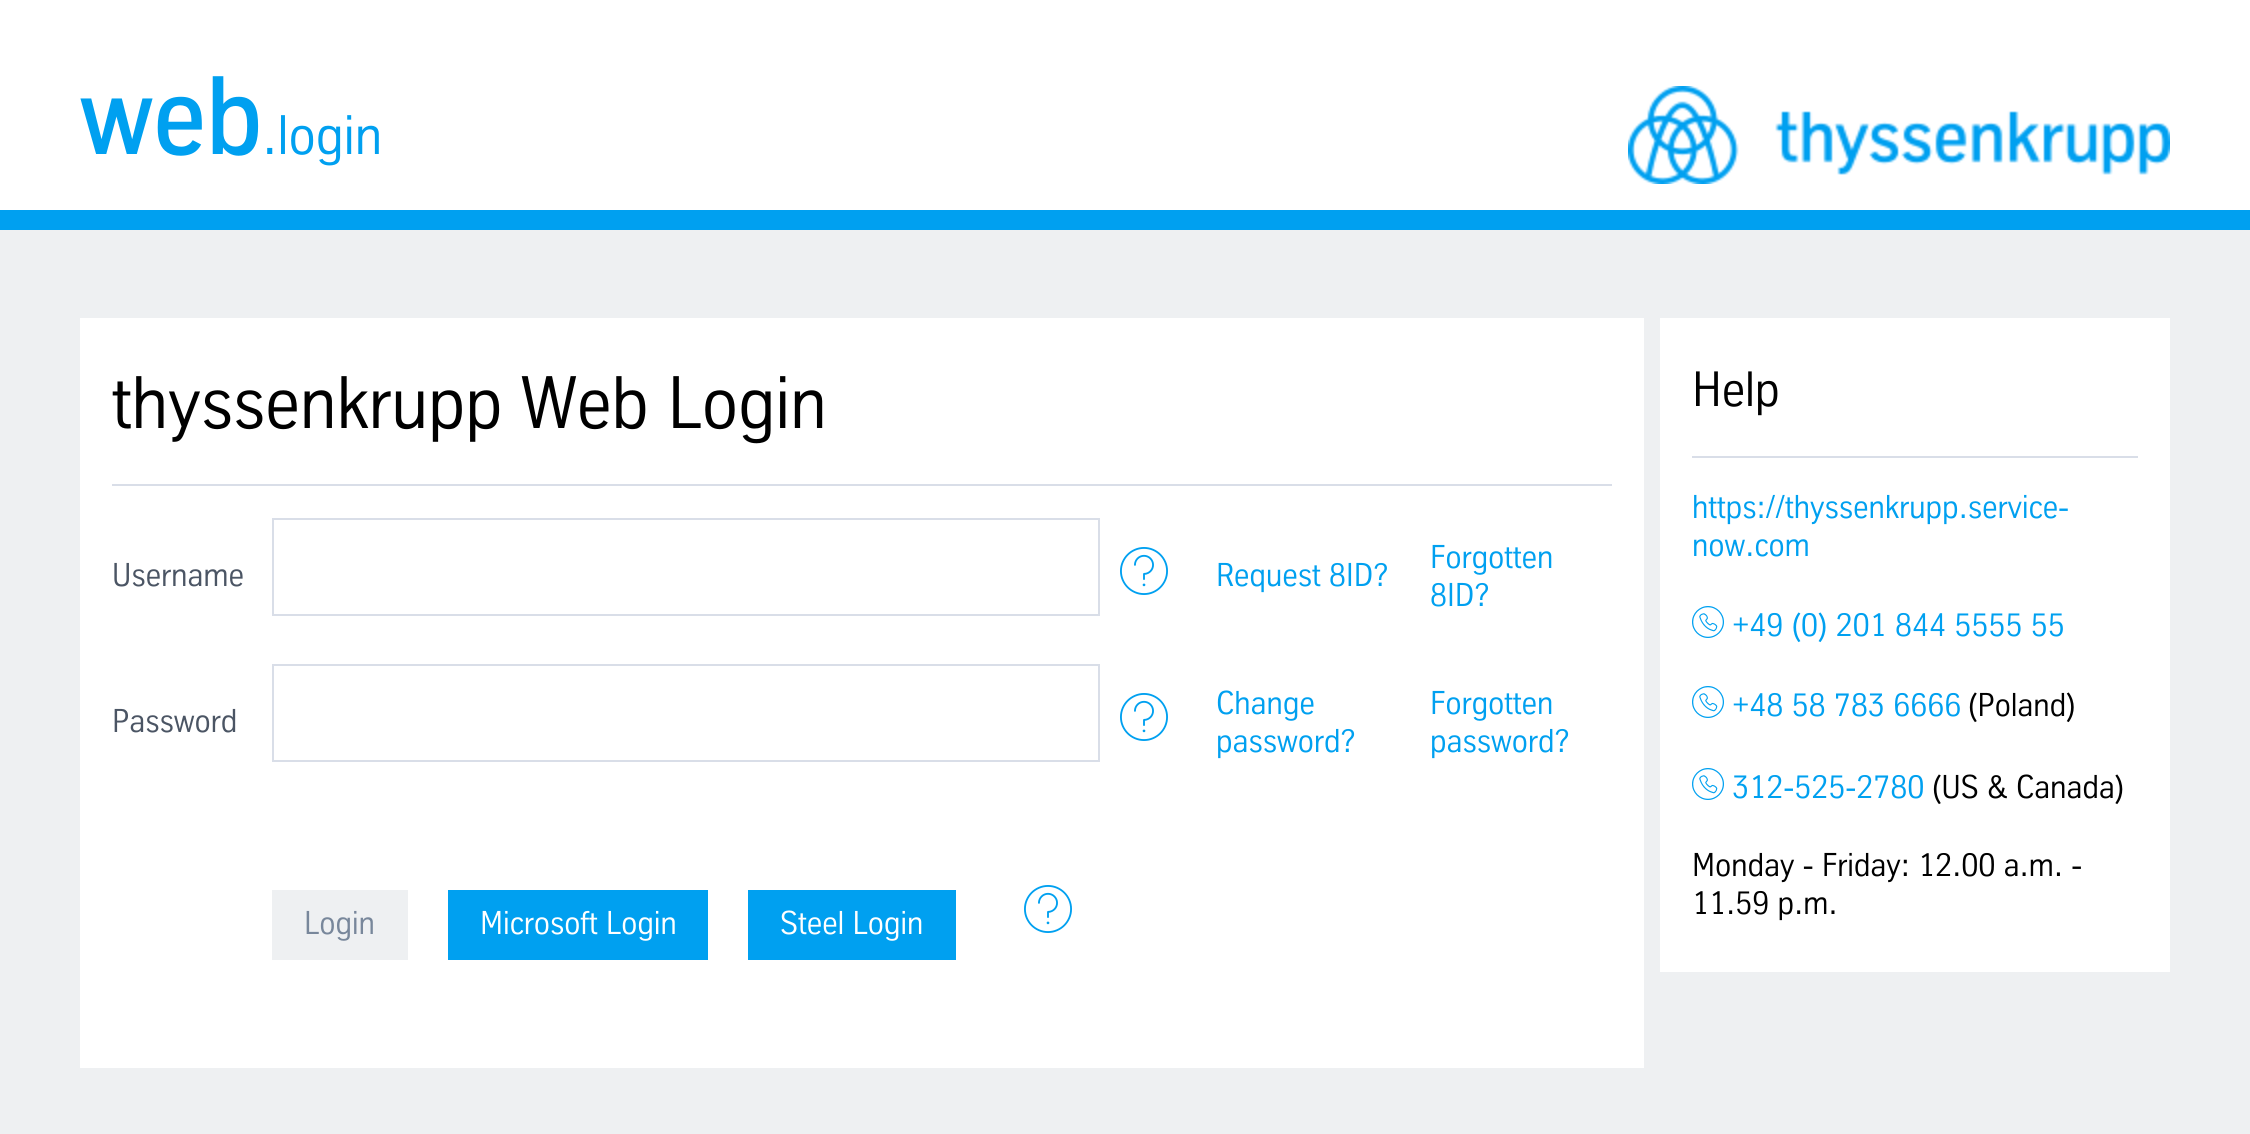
#include <cairo.h>
#include <math.h>
#include <stddef.h>


static void picture(cairo_t *cr, const char *path, double x, double y, double w, double h) {
    cairo_surface_t *image = cairo_image_surface_create_from_png(path);
    cairo_save(cr);
    cairo_set_source_surface(cr, image, x, y);
    cairo_rectangle(cr, x, y, w, h);
    cairo_fill(cr);
    cairo_restore(cr);
    cairo_surface_destroy(image);
}

int main(void) {
    cairo_surface_t *surface = cairo_image_surface_create(CAIRO_FORMAT_RGB24, 2250, 1134);
    cairo_t *cr = cairo_create(surface);
    cairo_font_options_t *options = cairo_font_options_create();
    cairo_font_options_set_hint_metrics(options, CAIRO_HINT_METRICS_OFF);
    cairo_font_options_set_hint_style(options, CAIRO_HINT_STYLE_NONE);
    cairo_set_font_options(cr, options);
    cairo_set_miter_limit(cr, 4);
    cairo_set_source_rgb(cr, 0.933, 0.941, 0.949);
    cairo_paint(cr);
    cairo_set_source_rgb(cr, 1, 1, 1);
    cairo_rectangle(cr, 0, 0, 2250, 210);
    cairo_fill(cr);
    picture(cr, "img1.png", 80, 76, 179, 80);
    picture(cr, "img2.png", 267, 115, 112, 51);
    picture(cr, "img3.png", 1628, 86, 542, 98);
    cairo_set_source_rgb(cr, 0, 0.627, 0.941);
    cairo_rectangle(cr, 0, 210, 2250, 20);
    cairo_fill(cr);
    cairo_set_source_rgb(cr, 1, 1, 1);
    cairo_rectangle(cr, 80, 318, 1564, 750);
    cairo_fill(cr);
    picture(cr, "img4.png", 112, 376, 711, 68);
    cairo_set_source_rgb(cr, 0.851, 0.871, 0.91);
    cairo_rectangle(cr, 112, 484, 1500, 2);
    cairo_fill(cr);
    picture(cr, "img5.png", 114, 562, 129, 25);
    cairo_rectangle(cr, 273, 519, 826, 96);
    cairo_stroke(cr);
    picture(cr, "img6.png", 1120, 547, 48, 48);
    picture(cr, "img7.png", 1218, 562, 169, 31);
    picture(cr, "img8.png", 1432, 544, 120, 31);
    picture(cr, "img9.png", 1431, 582, 57, 25);
    picture(cr, "img10.png", 114, 708, 122, 25);
    cairo_rectangle(cr, 273, 665, 826, 96);
    cairo_stroke(cr);
    picture(cr, "img6.png", 1120, 693, 48, 48);
    picture(cr, "img11.png", 1217, 690, 97, 31);
    picture(cr, "img12.png", 1218, 728, 137, 31);
    picture(cr, "img8.png", 1432, 690, 120, 31);
    picture(cr, "img12.png", 1432, 728, 137, 31);
    cairo_set_source_rgb(cr, 0.933, 0.941, 0.949);
    cairo_rectangle(cr, 272, 890, 136, 70);
    cairo_fill(cr);
    picture(cr, "img13.png", 306, 910, 67, 31);
    cairo_set_source_rgb(cr, 0, 0.627, 0.941);
    cairo_rectangle(cr, 448, 890, 260, 70);
    cairo_fill(cr);
    picture(cr, "img14.png", 482, 910, 193, 31);
    cairo_rectangle(cr, 748, 890, 208, 70);
    cairo_fill(cr);
    picture(cr, "img15.png", 781, 910, 141, 31);
    picture(cr, "img6.png", 1024, 885, 48, 48);
    cairo_set_source_rgb(cr, 1, 1, 1);
    cairo_rectangle(cr, 1660, 318, 510, 654);
    cairo_fill(cr);
    picture(cr, "img16.png", 1696, 371, 82, 45);
    cairo_set_source_rgb(cr, 0.851, 0.871, 0.91);
    cairo_rectangle(cr, 1692, 456, 446, 2);
    cairo_fill(cr);
    picture(cr, "img17.png", 1694, 494, 374, 31);
    picture(cr, "img18.png", 1694, 539, 114, 18);
    picture(cr, "img19.png", 1692, 606, 32, 32);
    picture(cr, "img20.png", 1733, 612, 330, 31);
    picture(cr, "img19.png", 1692, 686, 32, 32);
    picture(cr, "img21.png", 1733, 692, 227, 25);
    picture(cr, "img22.png", 1969, 692, 105, 31);
    picture(cr, "img19.png", 1692, 768, 32, 32);
    picture(cr, "img23.png", 1733, 774, 190, 25);
    picture(cr, "img24.png", 1933, 774, 74, 30);
    picture(cr, "img25.png", 2017, 774, 106, 31);
    picture(cr, "img26.png", 1694, 852, 387, 31);
    picture(cr, "img27.png", 1695, 890, 140, 31);
    cairo_surface_write_to_png(surface, "page.png");
    cairo_font_options_destroy(options);
    cairo_destroy(cr);
    cairo_surface_destroy(surface);
    return 0;
}
